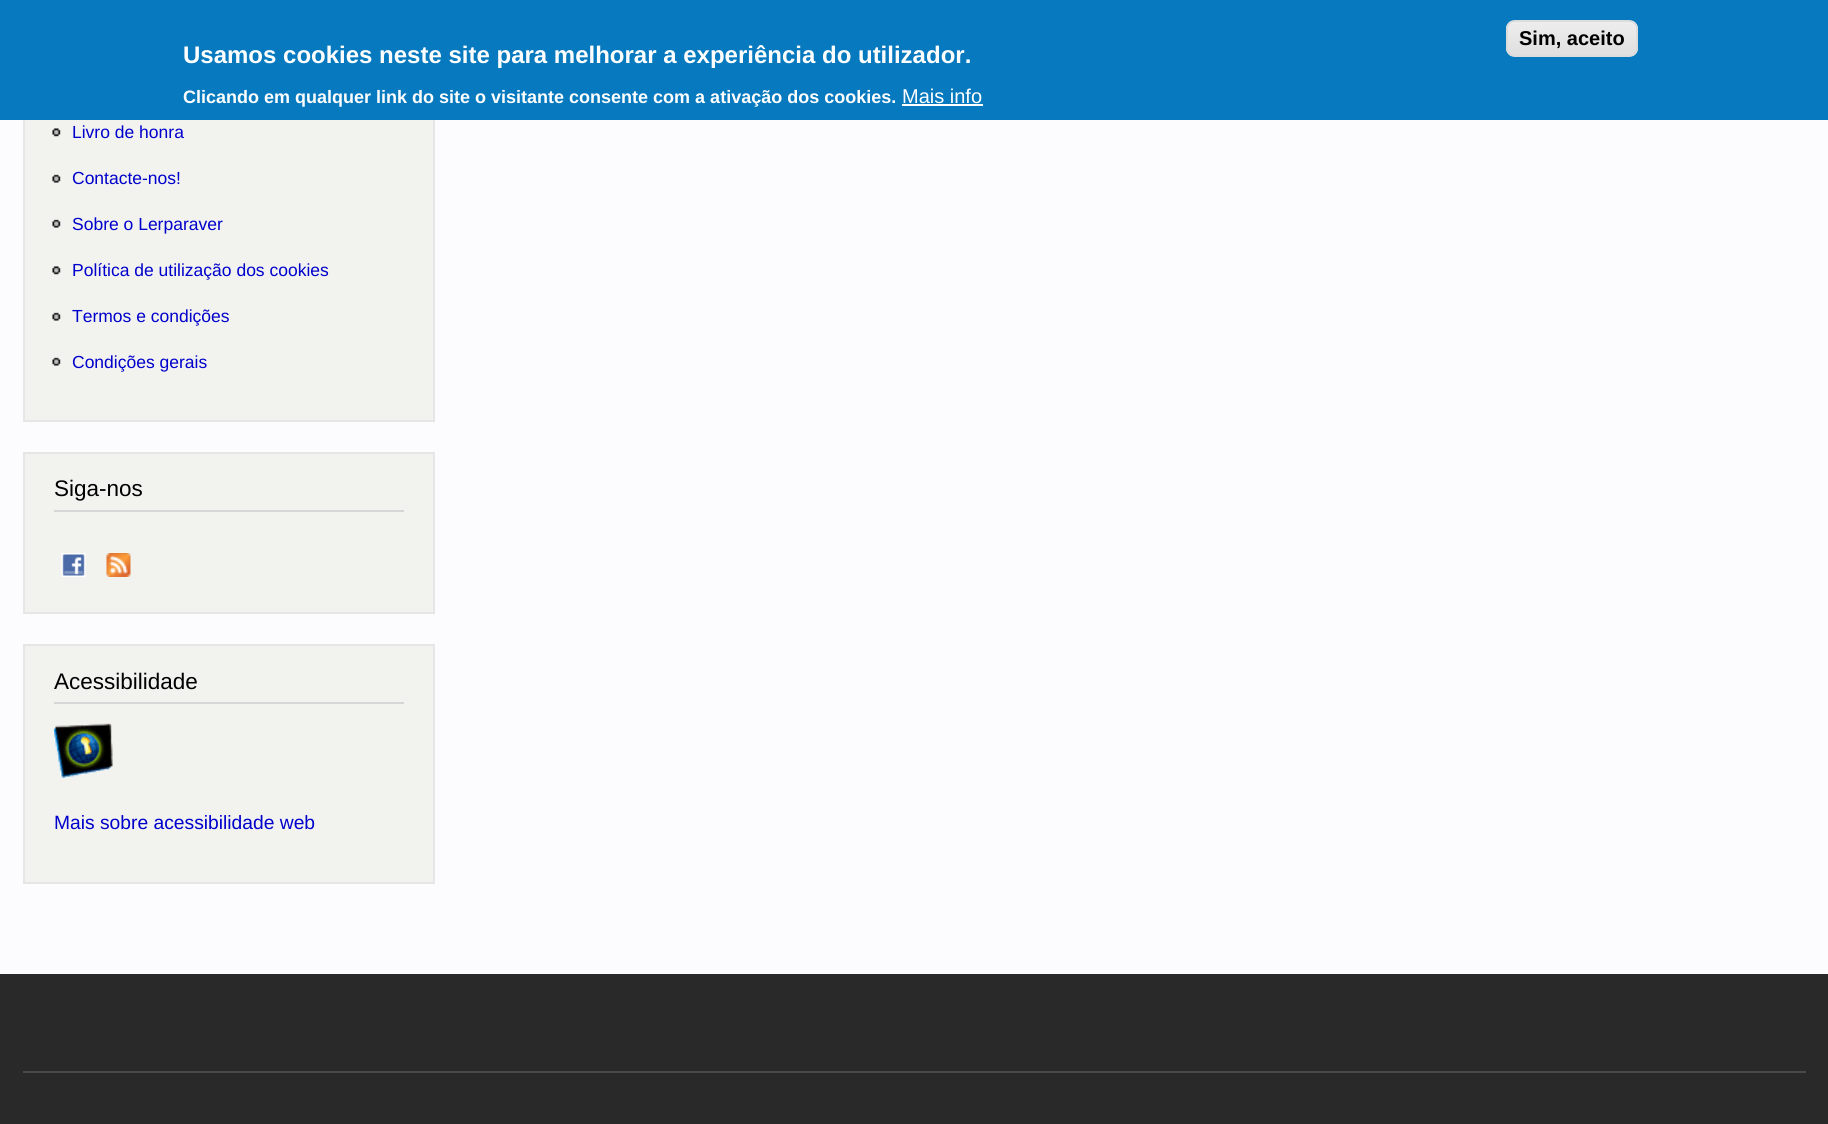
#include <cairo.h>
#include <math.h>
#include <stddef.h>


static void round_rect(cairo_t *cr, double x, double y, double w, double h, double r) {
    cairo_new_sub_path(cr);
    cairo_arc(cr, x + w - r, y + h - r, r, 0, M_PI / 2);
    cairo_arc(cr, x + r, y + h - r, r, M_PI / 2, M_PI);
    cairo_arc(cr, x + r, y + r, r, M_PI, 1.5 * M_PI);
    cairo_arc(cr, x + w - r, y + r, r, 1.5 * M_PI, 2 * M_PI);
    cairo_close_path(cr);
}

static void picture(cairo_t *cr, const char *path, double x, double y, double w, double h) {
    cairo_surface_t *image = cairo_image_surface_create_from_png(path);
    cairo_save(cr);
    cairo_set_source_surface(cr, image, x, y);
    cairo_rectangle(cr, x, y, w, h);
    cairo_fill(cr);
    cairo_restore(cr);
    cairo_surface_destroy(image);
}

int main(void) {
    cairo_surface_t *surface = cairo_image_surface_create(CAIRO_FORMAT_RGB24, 1828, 1124);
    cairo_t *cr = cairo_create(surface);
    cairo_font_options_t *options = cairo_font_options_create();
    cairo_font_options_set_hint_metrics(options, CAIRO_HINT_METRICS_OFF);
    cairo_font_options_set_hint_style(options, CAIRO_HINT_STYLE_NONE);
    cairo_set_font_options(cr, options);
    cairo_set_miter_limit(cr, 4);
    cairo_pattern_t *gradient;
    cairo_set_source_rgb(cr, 0.988, 0.988, 1);
    cairo_paint(cr);
    cairo_set_source_rgb(cr, 0.949, 0.949, 0.937);
    cairo_rectangle(cr, 25, 120, 408, 300);
    cairo_fill(cr);
    cairo_rectangle(cr, 24, -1, 410, 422);
    cairo_set_source_rgb(cr, 0.902, 0.902, 0.902);
    cairo_stroke(cr);
    cairo_set_source_rgb(cr, 0.027, 0.475, 0.749);
    cairo_rectangle(cr, 0, 0, 1828, 120);
    cairo_fill(cr);
    cairo_save(cr);
    round_rect(cr, 1506, 20, 132, 37, 9);
    cairo_clip(cr);
    gradient = cairo_pattern_create_linear(1572, 21, 1572, 56);
    cairo_pattern_add_color_stop_rgba(gradient, 0.05, 0.929, 0.929, 0.929, 1);
    cairo_pattern_add_color_stop_rgba(gradient, 1, 0.875, 0.875, 0.875, 1);
    cairo_set_source(cr, gradient);
    cairo_pattern_destroy(gradient);
    cairo_rectangle(cr, 1506, 21, 132, 35);
    cairo_fill(cr);
    cairo_restore(cr);
    cairo_set_source_rgb(cr, 1, 1, 1);
    cairo_new_path(cr);
    cairo_move_to(cr, 1515, 22);
    cairo_line_to(cr, 1629, 22);
    cairo_curve_to(cr, 1633, 22, 1636, 26, 1636, 30);
    cairo_line_to(cr, 1636, 50);
    cairo_line_to(cr, 1636, 53);
    cairo_curve_to(cr, 1636, 51, 1637, 50, 1637, 48);
    cairo_line_to(cr, 1637, 29);
    cairo_curve_to(cr, 1637, 25, 1633, 21, 1629, 21);
    cairo_line_to(cr, 1516, 21);
    cairo_curve_to(cr, 1512, 21, 1508, 25, 1508, 29);
    cairo_line_to(cr, 1508, 30);
    cairo_curve_to(cr, 1508, 26, 1511, 22, 1515, 22);
    cairo_close_path(cr);
    cairo_fill(cr);
    round_rect(cr, 1507, 21, 130, 35, 8);
    cairo_set_source_rgb(cr, 0.863, 0.863, 0.863);
    cairo_stroke(cr);
    cairo_select_font_face(cr, "Liberation Sans", CAIRO_FONT_SLANT_NORMAL, CAIRO_FONT_WEIGHT_BOLD);
    cairo_set_font_size(cr, 20);
    cairo_set_source_rgb(cr, 0, 0, 0);
    cairo_move_to(cr, 1519, 45);
    cairo_show_text(cr, "Sim, aceito");
    cairo_set_font_size(cr, 24);
    cairo_set_source_rgb(cr, 1, 1, 1);
    cairo_move_to(cr, 183, 63);
    cairo_show_text(cr, "Usamos cookies neste site para melhorar a experiência do utilizador.");
    cairo_set_font_size(cr, 18);
    cairo_move_to(cr, 183, 103);
    cairo_show_text(cr, "Clicando em qualquer link do site o visitante consente com a ativação dos cookies.");
    cairo_select_font_face(cr, "Liberation Sans", CAIRO_FONT_SLANT_NORMAL, CAIRO_FONT_WEIGHT_NORMAL);
    cairo_set_font_size(cr, 20);
    cairo_move_to(cr, 902, 103);
    cairo_show_text(cr, "Mais info");
    cairo_rectangle(cr, 902, 104, 81, 2);
    cairo_fill(cr);
    picture(cr, "img1.png", 52, 128, 9, 9);
    cairo_set_font_size(cr, 17.5);
    cairo_set_source_rgb(cr, 0, 0, 0.8);
    cairo_move_to(cr, 72, 138);
    cairo_show_text(cr, "Livro de honra");
    picture(cr, "img2.png", 52, 174, 9, 9);
    cairo_move_to(cr, 72, 184);
    cairo_show_text(cr, "Contacte-nos!");
    picture(cr, "img2.png", 52, 219, 9, 9);
    cairo_move_to(cr, 72, 230);
    cairo_show_text(cr, "Sobre o Lerparaver");
    picture(cr, "img1.png", 52, 266, 9, 9);
    cairo_move_to(cr, 72, 276);
    cairo_show_text(cr, "Política de utilização dos cookies");
    picture(cr, "img2.png", 52, 312, 9, 9);
    cairo_move_to(cr, 72, 322);
    cairo_show_text(cr, "Termos e condições");
    picture(cr, "img2.png", 52, 357, 9, 9);
    cairo_move_to(cr, 72, 368);
    cairo_show_text(cr, "Condições gerais");
    cairo_set_source_rgb(cr, 0.949, 0.949, 0.937);
    cairo_rectangle(cr, 24, 453, 410, 160);
    cairo_fill_preserve(cr);
    cairo_set_source_rgb(cr, 0.902, 0.902, 0.902);
    cairo_stroke(cr);
    cairo_set_source_rgb(cr, 0.839, 0.839, 0.839);
    cairo_rectangle(cr, 54, 510, 350, 2);
    cairo_fill(cr);
    cairo_set_font_size(cr, 22.5);
    cairo_set_source_rgb(cr, 0, 0, 0);
    cairo_move_to(cr, 54, 496);
    cairo_show_text(cr, "Siga-nos");
    picture(cr, "img3.png", 61, 553, 25, 24);
    picture(cr, "img4.png", 106, 553, 25, 24);
    cairo_set_source_rgb(cr, 0.949, 0.949, 0.937);
    cairo_rectangle(cr, 24, 645, 410, 238);
    cairo_fill_preserve(cr);
    cairo_set_source_rgb(cr, 0.902, 0.902, 0.902);
    cairo_stroke(cr);
    cairo_set_source_rgb(cr, 0.839, 0.839, 0.839);
    cairo_rectangle(cr, 54, 702, 350, 2);
    cairo_fill(cr);
    cairo_set_source_rgb(cr, 0, 0, 0);
    cairo_move_to(cr, 54, 689);
    cairo_show_text(cr, "Acessibilidade");
    picture(cr, "img5.png", 54, 723, 59, 55);
    cairo_set_font_size(cr, 19.25);
    cairo_set_source_rgb(cr, 0, 0, 0.8);
    cairo_move_to(cr, 54, 829);
    cairo_show_text(cr, "Mais sobre acessibilidade web");
    cairo_set_source_rgb(cr, 0.161, 0.161, 0.161);
    cairo_rectangle(cr, 0, 974, 1828, 150);
    cairo_fill(cr);
    cairo_set_source_rgb(cr, 0.286, 0.286, 0.286);
    cairo_rectangle(cr, 23, 1071, 1783, 2);
    cairo_fill(cr);
    cairo_surface_write_to_png(surface, "page.png");
    cairo_font_options_destroy(options);
    cairo_destroy(cr);
    cairo_surface_destroy(surface);
    return 0;
}
